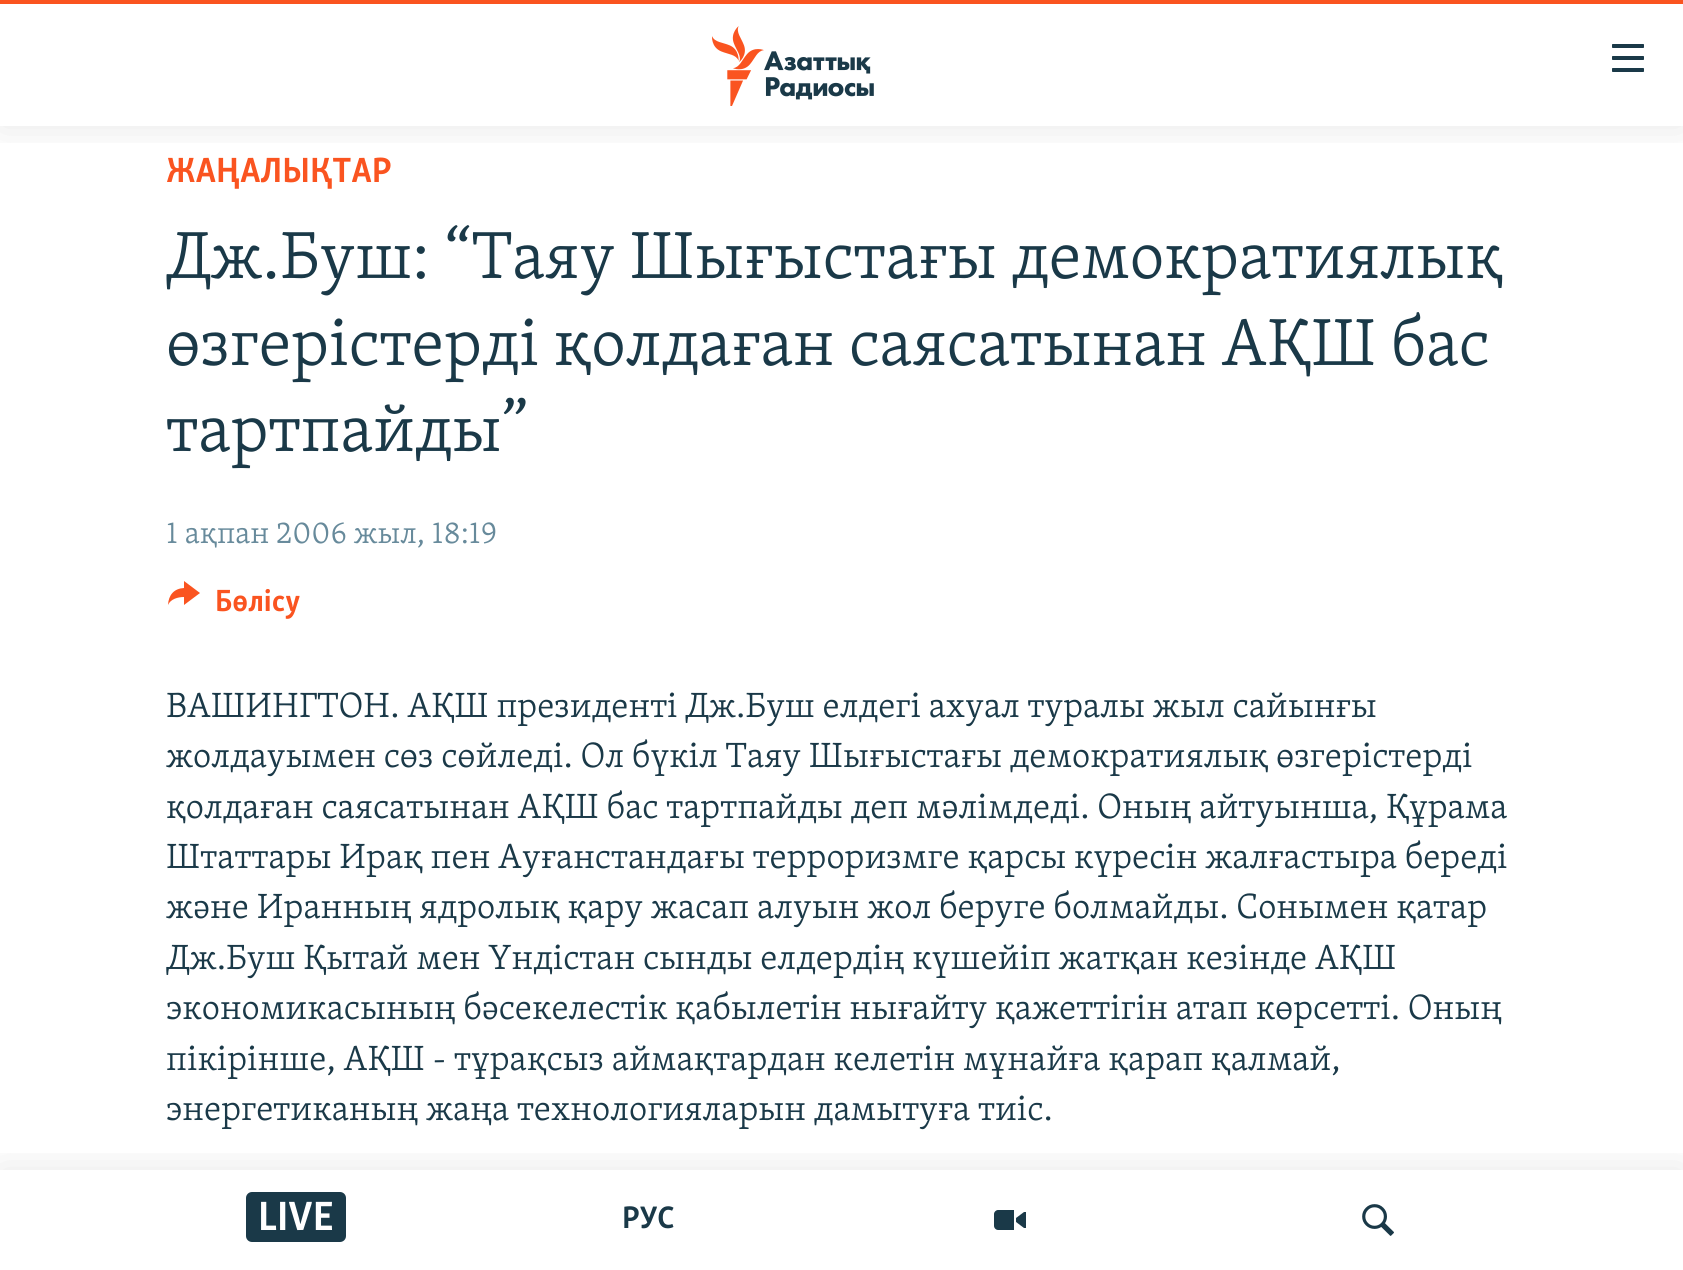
#include <cairo.h>
#include <math.h>
#include <stddef.h>


static void round_rect(cairo_t *cr, double x, double y, double w, double h, double r) {
    cairo_new_sub_path(cr);
    cairo_arc(cr, x + w - r, y + h - r, r, 0, M_PI / 2);
    cairo_arc(cr, x + r, y + h - r, r, M_PI / 2, M_PI);
    cairo_arc(cr, x + r, y + r, r, M_PI, 1.5 * M_PI);
    cairo_arc(cr, x + w - r, y + r, r, 1.5 * M_PI, 2 * M_PI);
    cairo_close_path(cr);
}

static void shadow(cairo_t *cr, double x, double y, double w, double h, double r, double blur, double alpha) {
    cairo_push_group_with_content(cr, CAIRO_CONTENT_ALPHA);
    cairo_set_operator(cr, CAIRO_OPERATOR_SOURCE);
    for (int i = 15; i >= -15 && fmin(w, h) + blur * i / 3 > 0; i -= 2) {
        double e = blur * i / 6;
        cairo_set_source_rgba(cr, 0, 0, 0, alpha * erfc((i - 1) / 8.5) / 2);
        round_rect(cr, x - e, y - e, w + 2 * e, h + 2 * e, fmax(0, fmin(r + e + blur * .6, fmin(w, h) / 2 + e)));
        cairo_fill(cr);
    }
    cairo_pattern_t *soft = cairo_pop_group(cr);
    cairo_mask(cr, soft);
    cairo_pattern_destroy(soft);
}

static void picture(cairo_t *cr, const char *path, double x, double y, double w, double h) {
    cairo_surface_t *image = cairo_image_surface_create_from_png(path);
    cairo_save(cr);
    cairo_set_source_surface(cr, image, x, y);
    cairo_rectangle(cr, x, y, w, h);
    cairo_fill(cr);
    cairo_restore(cr);
    cairo_surface_destroy(image);
}

int main(void) {
    cairo_surface_t *surface = cairo_image_surface_create(CAIRO_FORMAT_RGB24, 1683, 1270);
    cairo_t *cr = cairo_create(surface);
    cairo_font_options_t *options = cairo_font_options_create();
    cairo_font_options_set_hint_metrics(options, CAIRO_HINT_METRICS_OFF);
    cairo_font_options_set_hint_style(options, CAIRO_HINT_STYLE_NONE);
    cairo_set_font_options(cr, options);
    cairo_set_miter_limit(cr, 4);
    cairo_set_source_rgb(cr, 1, 1, 1);
    cairo_paint(cr);
    cairo_select_font_face(cr, "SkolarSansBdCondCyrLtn", CAIRO_FONT_SLANT_NORMAL, CAIRO_FONT_WEIGHT_BOLD);
    cairo_set_font_size(cr, 36);
    cairo_set_source_rgb(cr, 0.98, 0.329, 0.125);
    cairo_move_to(cr, 166, 182);
    cairo_show_text(cr, "ЖАҢАЛЫҚТАР");
    cairo_select_font_face(cr, "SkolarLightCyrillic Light", CAIRO_FONT_SLANT_NORMAL, CAIRO_FONT_WEIGHT_NORMAL);
    cairo_set_font_size(cr, 68.4);
    cairo_set_source_rgb(cr, 0.102, 0.224, 0.282);
    cairo_move_to(cr, 166, 278);
    cairo_show_text(cr, "Дж.Буш: “Таяу Шығыстағы демократиялық");
    cairo_move_to(cr, 166, 365);
    cairo_show_text(cr, "өзгерістерді қолдаған саясатынан АҚШ бас");
    cairo_move_to(cr, 166, 451);
    cairo_show_text(cr, "тартпайды”");
    cairo_set_font_size(cr, 31.5);
    cairo_set_source_rgb(cr, 0.404, 0.541, 0.608);
    cairo_move_to(cr, 166, 543);
    cairo_show_text(cr, "1 ақпан 2006 жыл, 18:19");
    cairo_set_source_rgb(cr, 0.98, 0.329, 0.125);
    cairo_new_path(cr);
    cairo_move_to(cr, 168, 605);
    cairo_curve_to(cr, 168.5, 595, 174, 588.5, 184, 588);
    cairo_line_to(cr, 184, 581);
    cairo_line_to(cr, 200, 593);
    cairo_line_to(cr, 184, 605);
    cairo_line_to(cr, 184, 597);
    cairo_curve_to(cr, 178, 597, 170.5, 599, 168, 605);
    cairo_close_path(cr);
    cairo_fill(cr);
    cairo_select_font_face(cr, "SkolarSansBdCondCyrLtn", CAIRO_FONT_SLANT_NORMAL, CAIRO_FONT_WEIGHT_BOLD);
    cairo_move_to(cr, 215, 611);
    cairo_show_text(cr, "Бөлісу");
    cairo_select_font_face(cr, "SkolarLightCyrillic Light", CAIRO_FONT_SLANT_NORMAL, CAIRO_FONT_WEIGHT_NORMAL);
    cairo_set_font_size(cr, 36);
    cairo_set_source_rgb(cr, 0.102, 0.224, 0.282);
    cairo_move_to(cr, 166, 717);
    cairo_show_text(cr, "ВАШИНГТОН. АҚШ президенті Дж.Буш елдегі ахуал туралы жыл сайынғы");
    cairo_move_to(cr, 166, 767);
    cairo_show_text(cr, "жолдауымен сөз сөйледі. Ол бүкіл Таяу Шығыстағы демократиялық өзгерістерді");
    cairo_move_to(cr, 166, 818);
    cairo_show_text(cr, "қолдаған саясатынан АҚШ бас тартпайды деп мәлімдеді. Оның айтуынша, Құрама");
    cairo_move_to(cr, 166, 868);
    cairo_show_text(cr, "Штаттары Ирақ пен Ауғанстандағы терроризмге қарсы күресін жалғастыра береді");
    cairo_move_to(cr, 166, 918);
    cairo_show_text(cr, "және Иранның ядролық қару жасап алуын жол беруге болмайды. Сонымен қатар");
    cairo_move_to(cr, 166, 969);
    cairo_show_text(cr, "Дж.Буш Қытай мен Үндістан сынды елдердің күшейіп жатқан кезінде АҚШ");
    cairo_move_to(cr, 166, 1019);
    cairo_show_text(cr, "экономикасының бәсекелестік қабылетін нығайту қажеттігін атап көрсетті. Оның");
    cairo_move_to(cr, 166, 1070);
    cairo_show_text(cr, "пікірінше, АҚШ - тұрақсыз аймақтардан келетін мұнайға қарап қалмай,");
    cairo_move_to(cr, 166, 1120);
    cairo_show_text(cr, "энергетиканың жаңа технологияларын дамытуға тиіс.");
    cairo_save(cr);
    cairo_rectangle(cr, 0, 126, 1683, 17);
    cairo_clip(cr);
    cairo_set_source_rgb(cr, 0, 0, 0);
    shadow(cr, 0, 0, 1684, 126, 0, 20, 0.1);
    cairo_restore(cr);
    cairo_set_source_rgb(cr, 0.98, 0.329, 0.125);
    cairo_rectangle(cr, 0, 0, 1683, 4);
    cairo_fill(cr);
    picture(cr, "img1.png", 712, 26, 162, 80);
    picture(cr, "img2.png", 1612, 44, 32, 28);
    cairo_save(cr);
    cairo_rectangle(cr, 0, 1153, 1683, 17);
    cairo_clip(cr);
    cairo_set_source_rgb(cr, 0, 0, 0);
    shadow(cr, 0, 1170, 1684, 100, 0, 20, 0.1);
    cairo_restore(cr);
    cairo_set_source_rgb(cr, 0.102, 0.224, 0.282);
    round_rect(cr, 246, 1192, 100, 50, 6);
    cairo_fill(cr);
    cairo_select_font_face(cr, "SkolarSansBdCondCyrLtn", CAIRO_FONT_SLANT_NORMAL, CAIRO_FONT_WEIGHT_BOLD);
    cairo_set_font_size(cr, 42);
    cairo_set_source_rgb(cr, 1, 1, 1);
    cairo_move_to(cr, 258, 1230);
    cairo_show_text(cr, "LIVE");
    cairo_set_font_size(cr, 32);
    cairo_set_source_rgb(cr, 0.102, 0.224, 0.282);
    cairo_move_to(cr, 622, 1228);
    cairo_show_text(cr, "РУС");
    picture(cr, "img3.png", 994, 1210, 32, 20);
    picture(cr, "img4.png", 1362, 1204, 32, 32);
    cairo_surface_write_to_png(surface, "page.png");
    cairo_font_options_destroy(options);
    cairo_destroy(cr);
    cairo_surface_destroy(surface);
    return 0;
}
